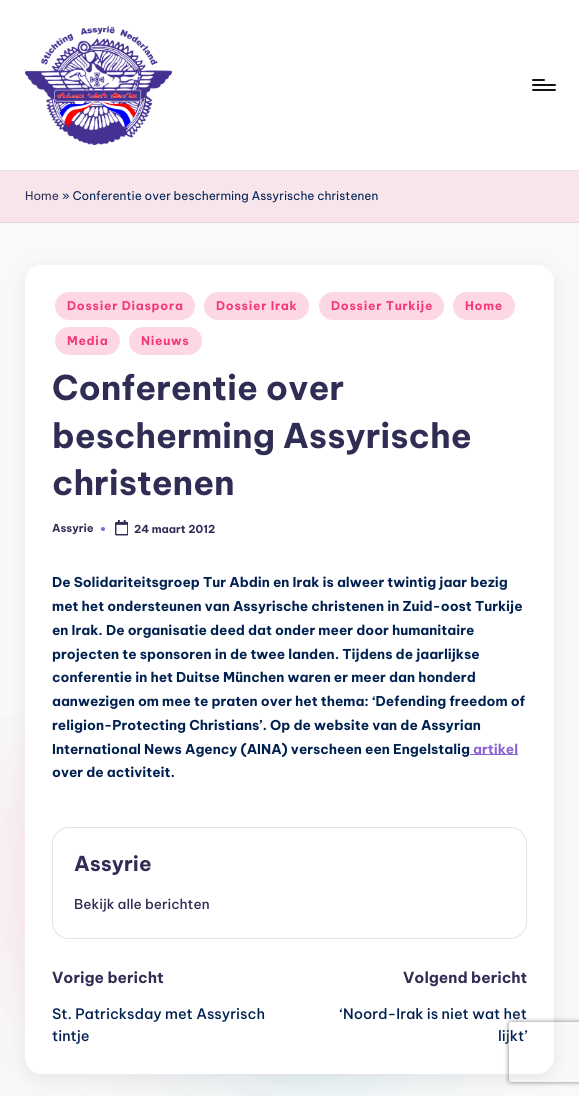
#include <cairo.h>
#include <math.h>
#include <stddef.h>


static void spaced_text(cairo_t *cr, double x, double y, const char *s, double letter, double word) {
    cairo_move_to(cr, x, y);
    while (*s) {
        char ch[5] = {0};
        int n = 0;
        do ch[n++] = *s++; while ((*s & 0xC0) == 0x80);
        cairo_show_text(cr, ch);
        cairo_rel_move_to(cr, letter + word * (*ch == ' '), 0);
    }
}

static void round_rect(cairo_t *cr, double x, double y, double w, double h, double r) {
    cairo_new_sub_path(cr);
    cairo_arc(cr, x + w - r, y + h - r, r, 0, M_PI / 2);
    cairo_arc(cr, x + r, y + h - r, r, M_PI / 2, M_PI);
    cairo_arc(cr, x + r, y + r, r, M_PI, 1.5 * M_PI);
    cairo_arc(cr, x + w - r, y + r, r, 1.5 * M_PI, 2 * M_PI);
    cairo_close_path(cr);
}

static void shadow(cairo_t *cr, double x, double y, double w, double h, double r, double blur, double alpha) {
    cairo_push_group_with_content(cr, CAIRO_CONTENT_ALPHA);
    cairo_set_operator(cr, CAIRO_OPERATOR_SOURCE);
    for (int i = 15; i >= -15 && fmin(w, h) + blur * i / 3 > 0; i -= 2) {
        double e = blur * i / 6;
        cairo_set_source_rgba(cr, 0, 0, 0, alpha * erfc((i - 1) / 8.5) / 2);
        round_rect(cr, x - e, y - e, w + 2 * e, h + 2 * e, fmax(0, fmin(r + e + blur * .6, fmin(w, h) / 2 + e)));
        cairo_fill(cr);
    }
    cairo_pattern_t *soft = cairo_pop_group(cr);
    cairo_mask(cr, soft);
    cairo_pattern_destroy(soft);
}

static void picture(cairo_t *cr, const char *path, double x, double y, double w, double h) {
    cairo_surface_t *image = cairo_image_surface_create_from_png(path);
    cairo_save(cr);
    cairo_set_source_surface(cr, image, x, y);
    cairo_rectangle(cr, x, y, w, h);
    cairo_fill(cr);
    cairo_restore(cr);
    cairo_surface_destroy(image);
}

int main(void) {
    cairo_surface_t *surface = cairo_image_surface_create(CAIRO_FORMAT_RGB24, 579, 1096);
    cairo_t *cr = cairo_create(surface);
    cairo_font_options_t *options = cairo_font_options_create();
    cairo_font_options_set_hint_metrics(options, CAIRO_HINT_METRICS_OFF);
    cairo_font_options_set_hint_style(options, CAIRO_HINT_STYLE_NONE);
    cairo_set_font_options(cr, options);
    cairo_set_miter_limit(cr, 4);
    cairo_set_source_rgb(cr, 0.969, 0.973, 0.976);
    cairo_paint(cr);
    cairo_set_source_rgb(cr, 1, 1, 1);
    cairo_rectangle(cr, 0, 0, 579, 170);
    cairo_fill(cr);
    cairo_set_source_rgb(cr, 0.89, 0.89, 0.89);
    cairo_rectangle(cr, 0, 170, 579, 1);
    cairo_fill(cr);
    picture(cr, "img1.png", 25, 26, 147, 119);
    cairo_set_source_rgb(cr, 0.075, 0.075, 0.082);
    round_rect(cr, 532, 84, 24, 2, 1);
    cairo_fill(cr);
    round_rect(cr, 532, 79, 13, 2, 1);
    cairo_fill(cr);
    round_rect(cr, 532, 89, 24, 2, 1);
    cairo_fill(cr);
    cairo_set_source_rgb(cr, 0.969, 0.898, 0.925);
    cairo_rectangle(cr, 0, 171, 579, 51);
    cairo_fill(cr);
    cairo_set_source_rgb(cr, 0.906, 0.843, 0.867);
    cairo_rectangle(cr, 0, 222, 579, 1);
    cairo_fill(cr);
    cairo_select_font_face(cr, "Be Vietnam Pro", CAIRO_FONT_SLANT_NORMAL, CAIRO_FONT_WEIGHT_NORMAL);
    cairo_set_font_size(cr, 11.9);
    cairo_set_source_rgb(cr, 0.188, 0.176, 0.333);
    cairo_move_to(cr, 25, 200);
    cairo_show_text(cr, "Home");
    cairo_set_source_rgb(cr, 0, 0.125, 0.314);
    cairo_move_to(cr, 62, 200);
    cairo_show_text(cr, "» Conferentie over bescherming Assyrische christenen");
    cairo_set_source_rgb(cr, 0.271, 0.263, 0.376);
    shadow(cr, 25, 270, 529, 809, 17, 10, 0.1);
    cairo_save(cr);
    cairo_rectangle(cr, 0, 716, 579, 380);
    cairo_clip(cr);
    cairo_set_source_rgb(cr, 0.969, 0.89, 0.902);
    shadow(cr, 0, 759, 244, 244, 122, 64, 1);
    cairo_restore(cr);
    cairo_set_source_rgb(cr, 0.016, 0.525, 0.545);
    shadow(cr, 176, 852, 245, 244, 122, 64, 0.1);
    cairo_set_source_rgb(cr, 1, 1, 1);
    round_rect(cr, 25, 265, 529, 809, 17);
    cairo_fill(cr);
    cairo_set_source_rgb(cr, 0.992, 0.843, 0.894);
    round_rect(cr, 55, 292, 140, 28, 14);
    cairo_fill(cr);
    cairo_select_font_face(cr, "Be Vietnam Pro", CAIRO_FONT_SLANT_NORMAL, CAIRO_FONT_WEIGHT_BOLD);
    cairo_set_font_size(cr, 12);
    cairo_set_source_rgb(cr, 0.957, 0.212, 0.463);
    spaced_text(cr, 67, 310, "Dossier Diaspora", 0.75, 0);
    cairo_set_source_rgb(cr, 0.992, 0.843, 0.894);
    round_rect(cr, 204, 292, 105, 28, 14);
    cairo_fill(cr);
    cairo_set_source_rgb(cr, 0.957, 0.212, 0.463);
    spaced_text(cr, 216, 310, "Dossier Irak", 0.75, 0);
    cairo_set_source_rgb(cr, 0.992, 0.843, 0.894);
    round_rect(cr, 319, 292, 125, 28, 14);
    cairo_fill(cr);
    cairo_set_source_rgb(cr, 0.957, 0.212, 0.463);
    spaced_text(cr, 331, 310, "Dossier Turkije", 0.75, 0);
    cairo_set_source_rgb(cr, 0.992, 0.843, 0.894);
    round_rect(cr, 453, 292, 62, 28, 14);
    cairo_fill(cr);
    cairo_set_source_rgb(cr, 0.957, 0.212, 0.463);
    spaced_text(cr, 465, 310, "Home", 0.75, 0);
    cairo_set_source_rgb(cr, 0.992, 0.843, 0.894);
    round_rect(cr, 55, 327, 65, 28, 14);
    cairo_fill(cr);
    cairo_set_source_rgb(cr, 0.957, 0.212, 0.463);
    spaced_text(cr, 67, 345, "Media", 0.75, 0);
    cairo_set_source_rgb(cr, 0.992, 0.843, 0.894);
    round_rect(cr, 129, 327, 73, 28, 14);
    cairo_fill(cr);
    cairo_set_source_rgb(cr, 0.957, 0.212, 0.463);
    spaced_text(cr, 141, 345, "Nieuws", 0.75, 0);
    cairo_set_font_size(cr, 34);
    cairo_set_source_rgb(cr, 0.188, 0.176, 0.333);
    cairo_move_to(cr, 52, 400);
    cairo_show_text(cr, "Conferentie over");
    cairo_move_to(cr, 52, 448);
    cairo_show_text(cr, "bescherming Assyrische");
    cairo_move_to(cr, 52, 495);
    cairo_show_text(cr, "christenen");
    cairo_set_font_size(cr, 11);
    cairo_move_to(cr, 52, 532);
    cairo_show_text(cr, "Assyrie");
    cairo_set_source_rgb(cr, 0.541, 0.388, 0.831);
    cairo_new_path(cr);
    cairo_arc(cr, 103, 529, 2, 0, 2 * M_PI);
    cairo_fill(cr);
    picture(cr, "img2.png", 115, 520, 13, 16);
    cairo_set_source_rgb(cr, 0.188, 0.176, 0.333);
    cairo_move_to(cr, 134, 533);
    cairo_show_text(cr, "24 maart 2012");
    cairo_set_font_size(cr, 13.55);
    cairo_set_source_rgb(cr, 0, 0.125, 0.314);
    cairo_move_to(cr, 52, 587);
    cairo_show_text(cr, "De Solidariteitsgroep Tur Abdin en Irak is alweer twintig jaar bezig");
    cairo_move_to(cr, 52, 611);
    cairo_show_text(cr, "met het ondersteunen van Assyrische christenen in Zuid-oost Turkije");
    cairo_move_to(cr, 52, 635);
    cairo_show_text(cr, "en Irak. De organisatie deed dat onder meer door humanitaire");
    cairo_move_to(cr, 52, 659);
    cairo_show_text(cr, "projecten te sponsoren in de twee landen. Tijdens de jaarlijkse");
    cairo_move_to(cr, 52, 682);
    cairo_show_text(cr, "conferentie in het Duitse München waren er meer dan honderd");
    cairo_move_to(cr, 52, 706);
    cairo_show_text(cr, "aanwezigen om mee te praten over het thema: ‘Defending freedom of");
    cairo_move_to(cr, 52, 730);
    cairo_show_text(cr, "religion-Protecting Christians’. Op de website van de Assyrian");
    cairo_move_to(cr, 52, 754);
    cairo_show_text(cr, "International News Agency (AINA) verscheen een Engelstalig");
    cairo_set_source_rgb(cr, 0.541, 0.388, 0.831);
    cairo_rectangle(cr, 470, 754, 48, 1);
    cairo_fill(cr);
    cairo_move_to(cr, 473, 754);
    cairo_show_text(cr, "artikel");
    cairo_set_source_rgb(cr, 0, 0.125, 0.314);
    cairo_move_to(cr, 52, 777);
    cairo_show_text(cr, "over de activiteit.");
    round_rect(cr, 52.5, 827.5, 474, 111, 16.5);
    cairo_set_source_rgb(cr, 0.89, 0.89, 0.89);
    cairo_set_line_width(cr, 1);
    cairo_stroke(cr);
    cairo_set_font_size(cr, 20.5);
    cairo_set_source_rgb(cr, 0.188, 0.176, 0.333);
    cairo_move_to(cr, 74, 871);
    cairo_show_text(cr, "Assyrie");
    cairo_select_font_face(cr, "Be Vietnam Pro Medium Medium", CAIRO_FONT_SLANT_NORMAL, CAIRO_FONT_WEIGHT_NORMAL);
    cairo_set_font_size(cr, 13.55);
    cairo_move_to(cr, 74, 909);
    cairo_show_text(cr, "Bekijk alle berichten");
    cairo_select_font_face(cr, "Be Vietnam Pro", CAIRO_FONT_SLANT_NORMAL, CAIRO_FONT_WEIGHT_BOLD);
    cairo_set_font_size(cr, 15.25);
    cairo_move_to(cr, 52, 983);
    cairo_show_text(cr, "Vorige bericht");
    cairo_select_font_face(cr, "Be Vietnam Pro Medium Medium", CAIRO_FONT_SLANT_NORMAL, CAIRO_FONT_WEIGHT_NORMAL);
    cairo_set_font_size(cr, 14.4);
    cairo_set_source_rgb(cr, 0, 0.125, 0.314);
    cairo_move_to(cr, 52, 1019);
    cairo_show_text(cr, "St. Patricksday met Assyrisch");
    cairo_move_to(cr, 52, 1041);
    cairo_show_text(cr, "tintje");
    cairo_select_font_face(cr, "Be Vietnam Pro", CAIRO_FONT_SLANT_NORMAL, CAIRO_FONT_WEIGHT_BOLD);
    cairo_set_font_size(cr, 15.25);
    cairo_set_source_rgb(cr, 0.188, 0.176, 0.333);
    cairo_move_to(cr, 403, 983);
    cairo_show_text(cr, "Volgend bericht");
    cairo_select_font_face(cr, "Be Vietnam Pro Medium Medium", CAIRO_FONT_SLANT_NORMAL, CAIRO_FONT_WEIGHT_NORMAL);
    cairo_set_font_size(cr, 14.4);
    cairo_set_source_rgb(cr, 0, 0.125, 0.314);
    cairo_move_to(cr, 339, 1019);
    cairo_show_text(cr, "‘Noord-Irak is niet wat het");
    cairo_move_to(cr, 498, 1041);
    cairo_show_text(cr, "lijkt’");
    cairo_save(cr);
    cairo_set_fill_rule(cr, CAIRO_FILL_RULE_EVEN_ODD);
    cairo_new_path(cr);
    cairo_move_to(cr, 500, 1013);
    cairo_line_to(cr, 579, 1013);
    cairo_line_to(cr, 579, 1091);
    cairo_line_to(cr, 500, 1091);
    cairo_close_path(cr);
    cairo_move_to(cr, 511, 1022);
    cairo_line_to(cr, 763, 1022);
    cairo_curve_to(cr, 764, 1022, 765, 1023, 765, 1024);
    cairo_line_to(cr, 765, 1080);
    cairo_curve_to(cr, 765, 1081, 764, 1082, 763, 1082);
    cairo_line_to(cr, 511, 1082);
    cairo_curve_to(cr, 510, 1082, 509, 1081, 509, 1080);
    cairo_line_to(cr, 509, 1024);
    cairo_curve_to(cr, 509, 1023, 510, 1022, 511, 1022);
    cairo_close_path(cr);
    cairo_clip(cr);
    cairo_set_source_rgb(cr, 0.502, 0.502, 0.502);
    shadow(cr, 509, 1022, 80, 60, 2, 2.5, 1);
    cairo_restore(cr);
    cairo_surface_write_to_png(surface, "page.png");
    cairo_font_options_destroy(options);
    cairo_destroy(cr);
    cairo_surface_destroy(surface);
    return 0;
}
